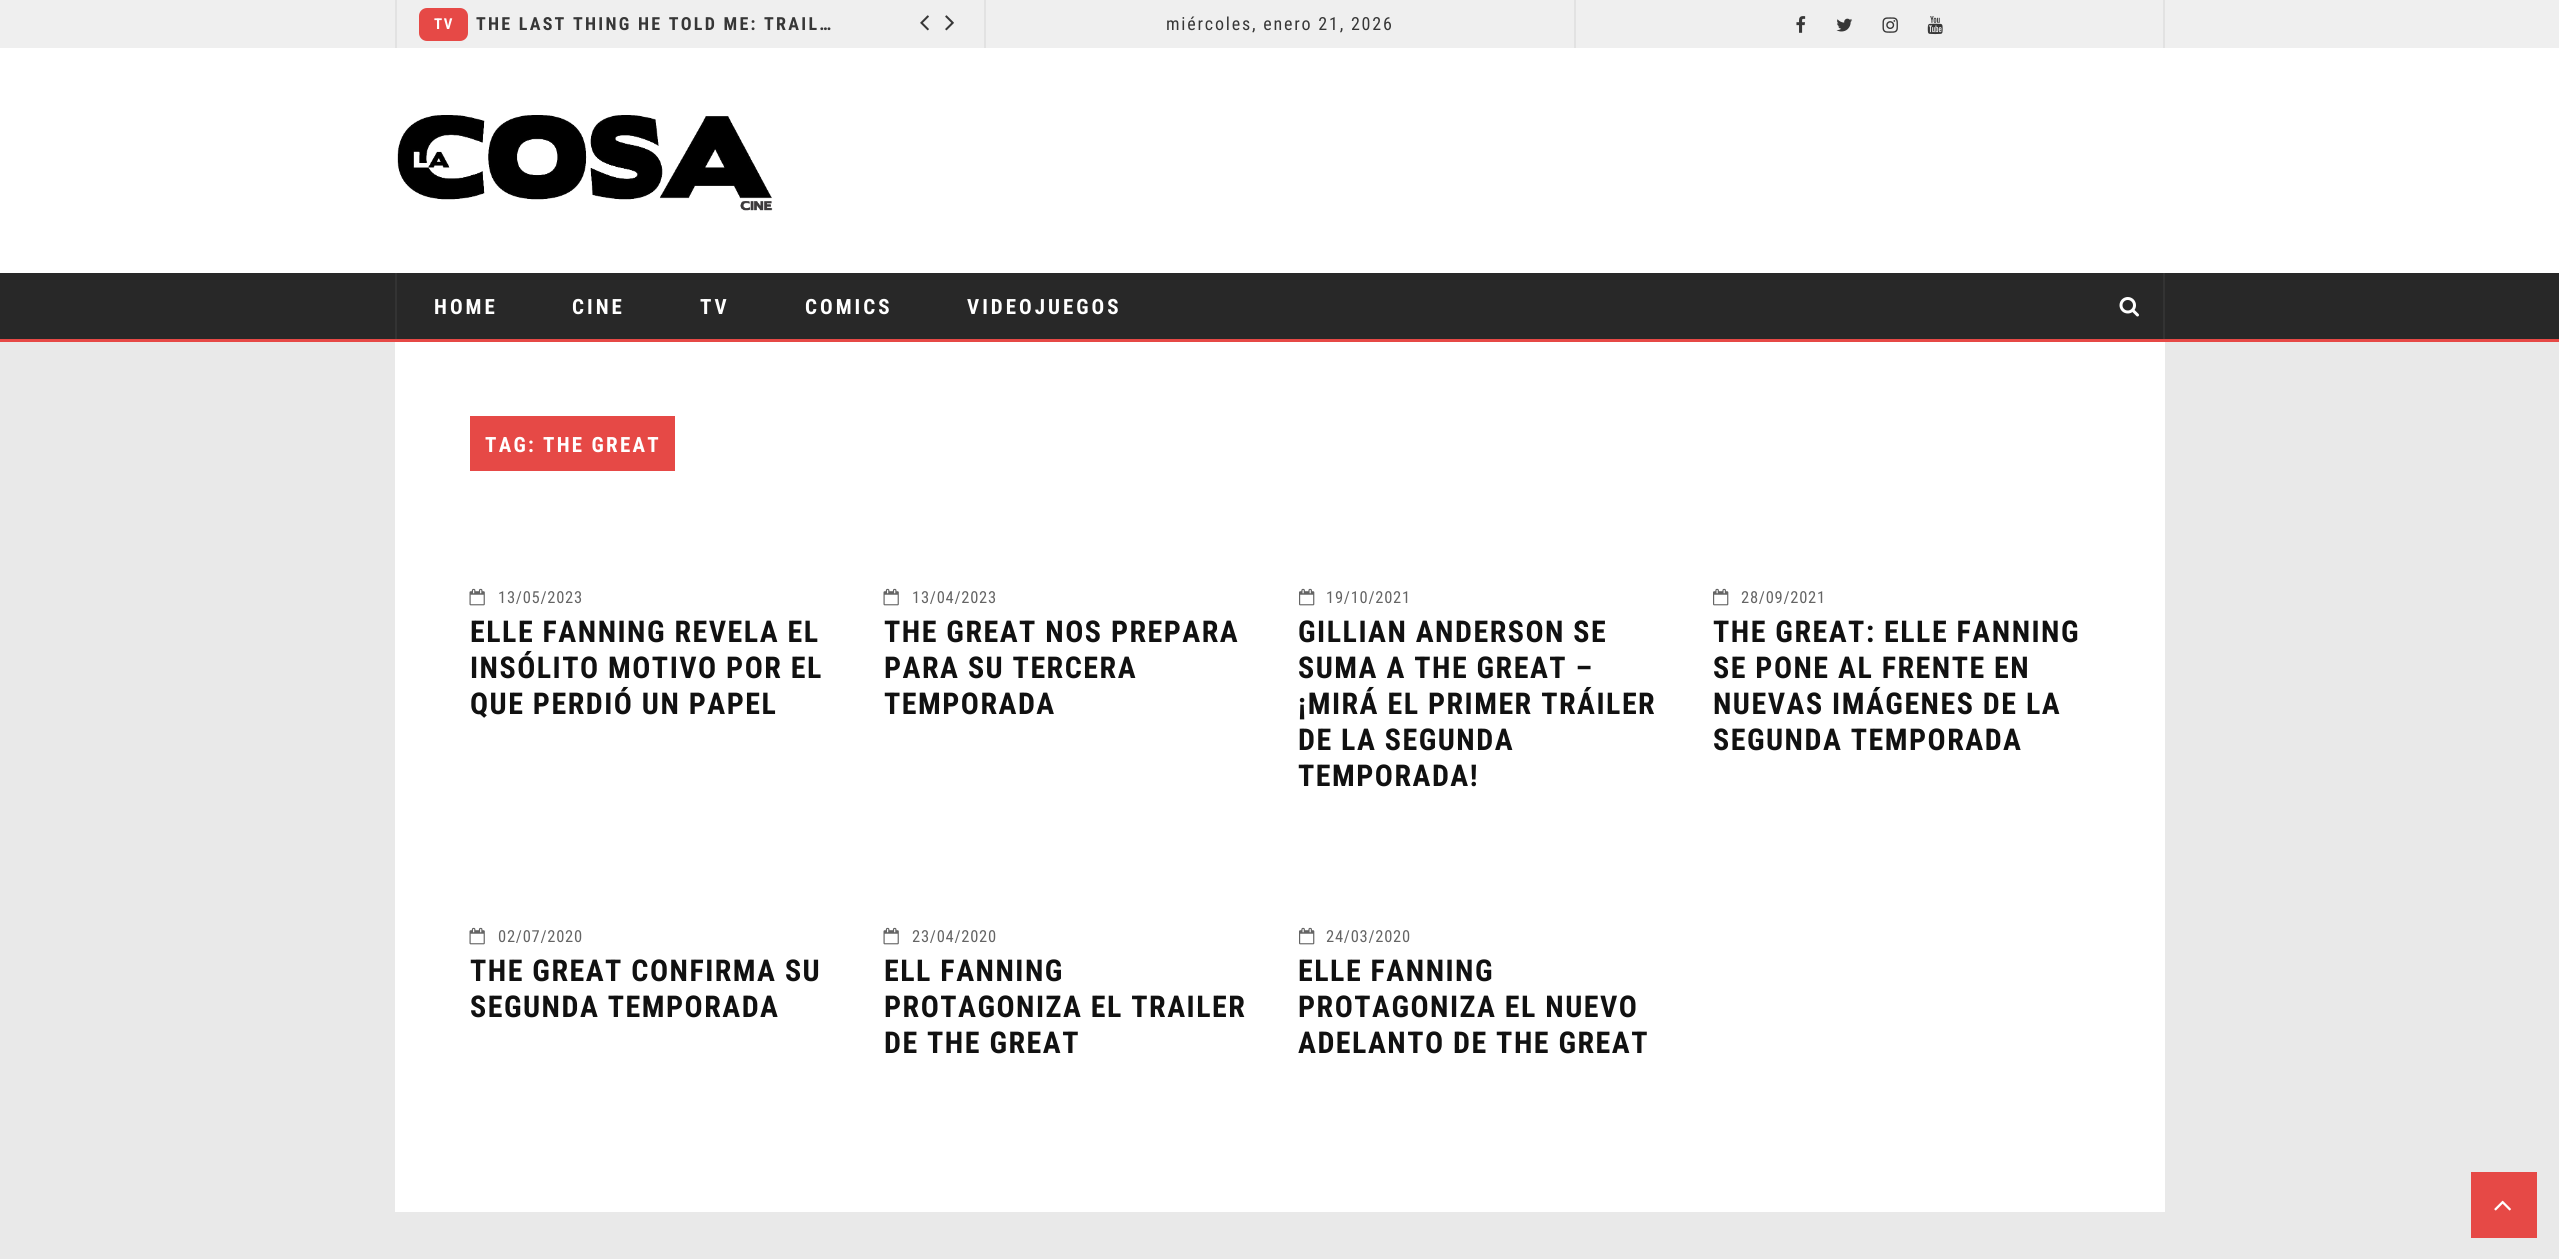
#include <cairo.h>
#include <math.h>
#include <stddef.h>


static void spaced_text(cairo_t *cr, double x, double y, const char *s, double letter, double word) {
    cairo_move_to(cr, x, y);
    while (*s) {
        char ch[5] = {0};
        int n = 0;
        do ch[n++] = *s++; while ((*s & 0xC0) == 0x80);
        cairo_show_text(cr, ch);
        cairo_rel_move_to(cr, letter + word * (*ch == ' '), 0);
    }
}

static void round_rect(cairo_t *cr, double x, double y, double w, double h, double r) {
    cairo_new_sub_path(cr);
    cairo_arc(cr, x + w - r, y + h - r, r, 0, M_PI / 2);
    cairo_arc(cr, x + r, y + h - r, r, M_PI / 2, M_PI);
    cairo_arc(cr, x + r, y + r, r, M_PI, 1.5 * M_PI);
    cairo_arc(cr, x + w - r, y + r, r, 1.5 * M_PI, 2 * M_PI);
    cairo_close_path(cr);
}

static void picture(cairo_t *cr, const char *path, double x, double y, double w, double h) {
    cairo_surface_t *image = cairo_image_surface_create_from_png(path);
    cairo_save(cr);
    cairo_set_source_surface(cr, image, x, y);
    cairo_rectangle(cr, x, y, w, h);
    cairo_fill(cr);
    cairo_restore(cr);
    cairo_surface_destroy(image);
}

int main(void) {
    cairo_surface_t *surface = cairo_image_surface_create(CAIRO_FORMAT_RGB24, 2559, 1259);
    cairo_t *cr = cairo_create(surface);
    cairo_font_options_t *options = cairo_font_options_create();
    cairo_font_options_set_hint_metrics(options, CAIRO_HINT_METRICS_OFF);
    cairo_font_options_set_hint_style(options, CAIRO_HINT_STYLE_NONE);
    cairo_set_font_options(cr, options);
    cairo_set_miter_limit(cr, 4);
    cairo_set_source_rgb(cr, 0.914, 0.914, 0.914);
    cairo_paint(cr);
    cairo_set_source_rgb(cr, 0.937, 0.937, 0.937);
    cairo_rectangle(cr, 0, 0, 2559, 48);
    cairo_fill(cr);
    cairo_set_source_rgb(cr, 0.886, 0.886, 0.886);
    cairo_rectangle(cr, 395, 0, 2, 48);
    cairo_fill(cr);
    cairo_rectangle(cr, 984, 0, 2, 48);
    cairo_fill(cr);
    cairo_set_source_rgb(cr, 0.902, 0.286, 0.275);
    round_rect(cr, 419, 8, 49, 33, 8);
    cairo_fill(cr);
    cairo_select_font_face(cr, "Roboto Condensed", CAIRO_FONT_SLANT_NORMAL, CAIRO_FONT_WEIGHT_BOLD);
    cairo_set_font_size(cr, 15);
    cairo_set_source_rgb(cr, 1, 1, 1);
    spaced_text(cr, 434, 29, "TV", 1.5, 0);
    cairo_set_font_size(cr, 18);
    cairo_set_source_rgb(cr, 0.216, 0.216, 0.216);
    spaced_text(cr, 476, 30, "THE LAST THING HE TOLD ME: TRAIL…", 2.25, 0);
    picture(cr, "img1.png", 920, 15, 9, 16);
    picture(cr, "img2.png", 945, 15, 9, 16);
    cairo_set_source_rgb(cr, 0.886, 0.886, 0.886);
    cairo_rectangle(cr, 1574, 0, 2, 48);
    cairo_fill(cr);
    cairo_select_font_face(cr, "Roboto Condensed", CAIRO_FONT_SLANT_NORMAL, CAIRO_FONT_WEIGHT_NORMAL);
    cairo_set_source_rgb(cr, 0.216, 0.216, 0.216);
    spaced_text(cr, 1166, 30, "miércoles, enero 21, 2026", 1.8, 0);
    cairo_set_source_rgb(cr, 0.886, 0.886, 0.886);
    cairo_rectangle(cr, 2163, 0, 2, 48);
    cairo_fill(cr);
    picture(cr, "img3.png", 1796, 16, 10, 17);
    picture(cr, "img4.png", 1836, 18, 17, 14);
    picture(cr, "img5.png", 1882, 17, 16, 16);
    picture(cr, "img6.png", 1927, 16, 16, 19);
    cairo_set_source_rgb(cr, 1, 1, 1);
    cairo_rectangle(cr, 0, 48, 2559, 225);
    cairo_fill(cr);
    picture(cr, "img7.png", 397, 115, 376, 96);
    cairo_set_source_rgb(cr, 0.157, 0.157, 0.157);
    cairo_rectangle(cr, 0, 273, 2559, 66);
    cairo_fill(cr);
    cairo_set_source_rgb(cr, 0.902, 0.286, 0.275);
    cairo_rectangle(cr, 0, 339, 2559, 3);
    cairo_fill(cr);
    cairo_set_source_rgb(cr, 0.2, 0.2, 0.2);
    cairo_rectangle(cr, 395, 273, 2, 66);
    cairo_fill(cr);
    cairo_select_font_face(cr, "Roboto Condensed", CAIRO_FONT_SLANT_NORMAL, CAIRO_FONT_WEIGHT_BOLD);
    cairo_set_font_size(cr, 21);
    cairo_set_source_rgb(cr, 1, 1, 1);
    spaced_text(cr, 434, 314, "HOME", 3, 0);
    spaced_text(cr, 572, 314, "CINE", 3, 0);
    spaced_text(cr, 700, 314, "TV", 3, 0);
    spaced_text(cr, 805, 314, "COMICS", 3, 0);
    spaced_text(cr, 967, 314, "VIDEOJUEGOS", 3, 0);
    cairo_set_source_rgb(cr, 0.2, 0.2, 0.2);
    cairo_rectangle(cr, 2163, 273, 2, 66);
    cairo_fill(cr);
    picture(cr, "img8.png", 2119, 297, 20, 20);
    cairo_set_source_rgb(cr, 1, 1, 1);
    cairo_rectangle(cr, 395, 342, 1770, 870);
    cairo_fill(cr);
    cairo_set_source_rgb(cr, 0.902, 0.286, 0.275);
    cairo_rectangle(cr, 470, 416, 205, 55);
    cairo_fill(cr);
    cairo_set_source_rgb(cr, 1, 1, 1);
    spaced_text(cr, 485, 452, "TAG: THE GREAT", 2.25, 0);
    picture(cr, "img9.png", 469, 588, 16, 18);
    cairo_select_font_face(cr, "Roboto Condensed", CAIRO_FONT_SLANT_NORMAL, CAIRO_FONT_WEIGHT_NORMAL);
    cairo_set_font_size(cr, 16.5);
    cairo_set_source_rgb(cr, 0.392, 0.392, 0.392);
    spaced_text(cr, 498, 603, "13/05/2023", 0.75, 0);
    cairo_select_font_face(cr, "Roboto Condensed", CAIRO_FONT_SLANT_NORMAL, CAIRO_FONT_WEIGHT_BOLD);
    cairo_set_font_size(cr, 30);
    cairo_set_source_rgb(cr, 0.067, 0.067, 0.067);
    spaced_text(cr, 470, 642, "ELLE FANNING REVELA EL", 1.5, 0);
    spaced_text(cr, 470, 678, "INSÓLITO MOTIVO POR EL", 1.5, 0);
    spaced_text(cr, 470, 714, "QUE PERDIÓ UN PAPEL", 1.5, 0);
    picture(cr, "img9.png", 883, 588, 16, 18);
    cairo_select_font_face(cr, "Roboto Condensed", CAIRO_FONT_SLANT_NORMAL, CAIRO_FONT_WEIGHT_NORMAL);
    cairo_set_font_size(cr, 16.5);
    cairo_set_source_rgb(cr, 0.392, 0.392, 0.392);
    spaced_text(cr, 912, 603, "13/04/2023", 0.75, 0);
    cairo_select_font_face(cr, "Roboto Condensed", CAIRO_FONT_SLANT_NORMAL, CAIRO_FONT_WEIGHT_BOLD);
    cairo_set_font_size(cr, 30);
    cairo_set_source_rgb(cr, 0.067, 0.067, 0.067);
    spaced_text(cr, 884, 642, "THE GREAT NOS PREPARA", 1.5, 0);
    spaced_text(cr, 884, 678, "PARA SU TERCERA", 1.5, 0);
    spaced_text(cr, 884, 714, "TEMPORADA", 1.5, 0);
    picture(cr, "img10.png", 1299, 588, 16, 18);
    cairo_select_font_face(cr, "Roboto Condensed", CAIRO_FONT_SLANT_NORMAL, CAIRO_FONT_WEIGHT_NORMAL);
    cairo_set_font_size(cr, 16.5);
    cairo_set_source_rgb(cr, 0.392, 0.392, 0.392);
    spaced_text(cr, 1326, 603, "19/10/2021", 0.75, 0);
    cairo_select_font_face(cr, "Roboto Condensed", CAIRO_FONT_SLANT_NORMAL, CAIRO_FONT_WEIGHT_BOLD);
    cairo_set_font_size(cr, 30);
    cairo_set_source_rgb(cr, 0.067, 0.067, 0.067);
    spaced_text(cr, 1298, 642, "GILLIAN ANDERSON SE", 1.5, 0);
    spaced_text(cr, 1298, 678, "SUMA A THE GREAT –", 1.5, 0);
    spaced_text(cr, 1298, 714, "¡MIRÁ EL PRIMER TRÁILER", 1.5, 0);
    spaced_text(cr, 1298, 750, "DE LA SEGUNDA", 1.5, 0);
    spaced_text(cr, 1298, 786, "TEMPORADA!", 1.5, 0);
    picture(cr, "img10.png", 1713, 588, 16, 18);
    cairo_select_font_face(cr, "Roboto Condensed", CAIRO_FONT_SLANT_NORMAL, CAIRO_FONT_WEIGHT_NORMAL);
    cairo_set_font_size(cr, 16.5);
    cairo_set_source_rgb(cr, 0.392, 0.392, 0.392);
    spaced_text(cr, 1741, 603, "28/09/2021", 0.75, 0);
    cairo_select_font_face(cr, "Roboto Condensed", CAIRO_FONT_SLANT_NORMAL, CAIRO_FONT_WEIGHT_BOLD);
    cairo_set_font_size(cr, 30);
    cairo_set_source_rgb(cr, 0.067, 0.067, 0.067);
    spaced_text(cr, 1713, 642, "THE GREAT: ELLE FANNING", 1.5, 0);
    spaced_text(cr, 1713, 678, "SE PONE AL FRENTE EN", 1.5, 0);
    spaced_text(cr, 1713, 714, "NUEVAS IMÁGENES DE LA", 1.5, 0);
    spaced_text(cr, 1713, 750, "SEGUNDA TEMPORADA", 1.5, 0);
    picture(cr, "img9.png", 469, 927, 16, 18);
    cairo_select_font_face(cr, "Roboto Condensed", CAIRO_FONT_SLANT_NORMAL, CAIRO_FONT_WEIGHT_NORMAL);
    cairo_set_font_size(cr, 16.5);
    cairo_set_source_rgb(cr, 0.392, 0.392, 0.392);
    spaced_text(cr, 498, 942, "02/07/2020", 0.75, 0);
    cairo_select_font_face(cr, "Roboto Condensed", CAIRO_FONT_SLANT_NORMAL, CAIRO_FONT_WEIGHT_BOLD);
    cairo_set_font_size(cr, 30);
    cairo_set_source_rgb(cr, 0.067, 0.067, 0.067);
    spaced_text(cr, 470, 981, "THE GREAT CONFIRMA SU", 1.5, 0);
    spaced_text(cr, 470, 1017, "SEGUNDA TEMPORADA", 1.5, 0);
    picture(cr, "img9.png", 883, 927, 16, 18);
    cairo_select_font_face(cr, "Roboto Condensed", CAIRO_FONT_SLANT_NORMAL, CAIRO_FONT_WEIGHT_NORMAL);
    cairo_set_font_size(cr, 16.5);
    cairo_set_source_rgb(cr, 0.392, 0.392, 0.392);
    spaced_text(cr, 912, 942, "23/04/2020", 0.75, 0);
    cairo_select_font_face(cr, "Roboto Condensed", CAIRO_FONT_SLANT_NORMAL, CAIRO_FONT_WEIGHT_BOLD);
    cairo_set_font_size(cr, 30);
    cairo_set_source_rgb(cr, 0.067, 0.067, 0.067);
    spaced_text(cr, 884, 981, "ELL FANNING", 1.5, 0);
    spaced_text(cr, 884, 1017, "PROTAGONIZA EL TRAILER", 1.5, 0);
    spaced_text(cr, 884, 1053, "DE THE GREAT", 1.5, 0);
    picture(cr, "img10.png", 1299, 927, 16, 18);
    cairo_select_font_face(cr, "Roboto Condensed", CAIRO_FONT_SLANT_NORMAL, CAIRO_FONT_WEIGHT_NORMAL);
    cairo_set_font_size(cr, 16.5);
    cairo_set_source_rgb(cr, 0.392, 0.392, 0.392);
    spaced_text(cr, 1326, 942, "24/03/2020", 0.75, 0);
    cairo_select_font_face(cr, "Roboto Condensed", CAIRO_FONT_SLANT_NORMAL, CAIRO_FONT_WEIGHT_BOLD);
    cairo_set_font_size(cr, 30);
    cairo_set_source_rgb(cr, 0.067, 0.067, 0.067);
    spaced_text(cr, 1298, 981, "ELLE FANNING", 1.5, 0);
    spaced_text(cr, 1298, 1017, "PROTAGONIZA EL NUEVO", 1.5, 0);
    spaced_text(cr, 1298, 1053, "ADELANTO DE THE GREAT", 1.5, 0);
    cairo_set_source_rgb(cr, 0.902, 0.286, 0.275);
    cairo_rectangle(cr, 2471, 1172, 66, 66);
    cairo_fill(cr);
    picture(cr, "img11.png", 2494, 1200, 17, 11);
    cairo_surface_write_to_png(surface, "page.png");
    cairo_font_options_destroy(options);
    cairo_destroy(cr);
    cairo_surface_destroy(surface);
    return 0;
}
